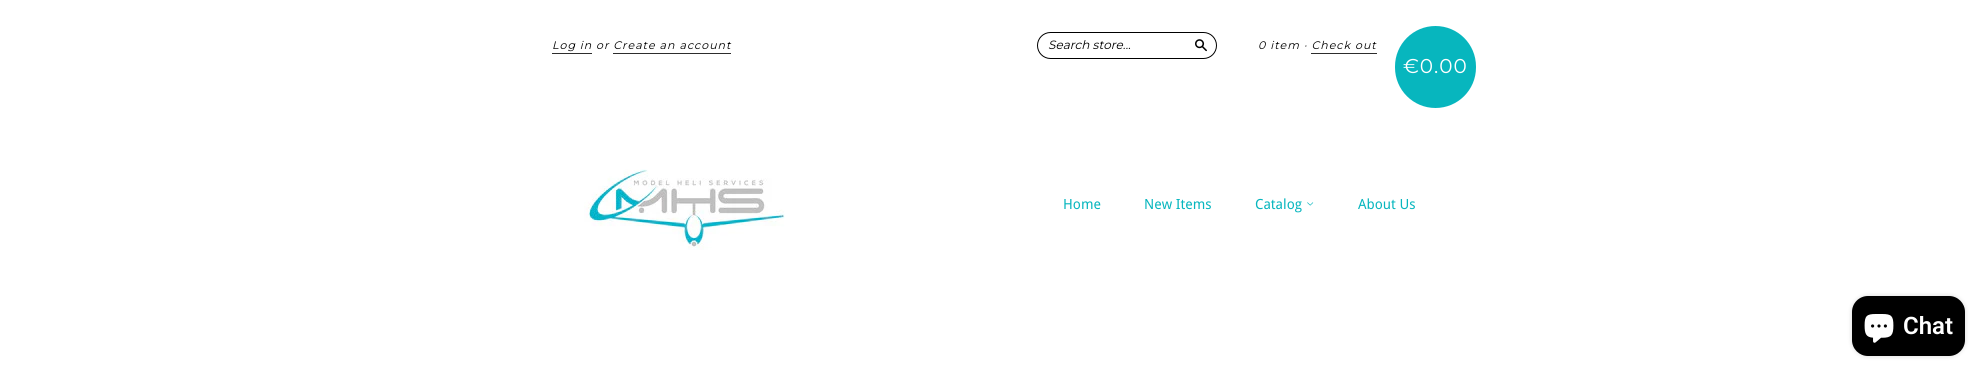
#include <cairo.h>
#include <math.h>
#include <stddef.h>


static void spaced_text(cairo_t *cr, double x, double y, const char *s, double letter, double word) {
    cairo_move_to(cr, x, y);
    while (*s) {
        char ch[5] = {0};
        int n = 0;
        do ch[n++] = *s++; while ((*s & 0xC0) == 0x80);
        cairo_show_text(cr, ch);
        cairo_rel_move_to(cr, letter + word * (*ch == ' '), 0);
    }
}

static void round_rect(cairo_t *cr, double x, double y, double w, double h, double r) {
    cairo_new_sub_path(cr);
    cairo_arc(cr, x + w - r, y + h - r, r, 0, M_PI / 2);
    cairo_arc(cr, x + r, y + h - r, r, M_PI / 2, M_PI);
    cairo_arc(cr, x + r, y + r, r, M_PI, 1.5 * M_PI);
    cairo_arc(cr, x + w - r, y + r, r, 1.5 * M_PI, 2 * M_PI);
    cairo_close_path(cr);
}

static void shadow(cairo_t *cr, double x, double y, double w, double h, double r, double blur, double alpha) {
    cairo_push_group_with_content(cr, CAIRO_CONTENT_ALPHA);
    cairo_set_operator(cr, CAIRO_OPERATOR_SOURCE);
    for (int i = 15; i >= -15 && fmin(w, h) + blur * i / 3 > 0; i -= 2) {
        double e = blur * i / 6;
        cairo_set_source_rgba(cr, 0, 0, 0, alpha * erfc((i - 1) / 8.5) / 2);
        round_rect(cr, x - e, y - e, w + 2 * e, h + 2 * e, fmax(0, fmin(r + e + blur * .6, fmin(w, h) / 2 + e)));
        cairo_fill(cr);
    }
    cairo_pattern_t *soft = cairo_pop_group(cr);
    cairo_mask(cr, soft);
    cairo_pattern_destroy(soft);
}

static void picture(cairo_t *cr, const char *path, double x, double y, double w, double h) {
    cairo_surface_t *image = cairo_image_surface_create_from_png(path);
    cairo_save(cr);
    cairo_set_source_surface(cr, image, x, y);
    cairo_rectangle(cr, x, y, w, h);
    cairo_fill(cr);
    cairo_restore(cr);
    cairo_surface_destroy(image);
}

int main(void) {
    cairo_surface_t *surface = cairo_image_surface_create(CAIRO_FORMAT_RGB24, 1987, 377);
    cairo_t *cr = cairo_create(surface);
    cairo_font_options_t *options = cairo_font_options_create();
    cairo_font_options_set_hint_metrics(options, CAIRO_HINT_METRICS_OFF);
    cairo_font_options_set_hint_style(options, CAIRO_HINT_STYLE_NONE);
    cairo_set_font_options(cr, options);
    cairo_set_miter_limit(cr, 4);
    cairo_set_source_rgb(cr, 1, 1, 1);
    cairo_paint(cr);
    cairo_select_font_face(cr, "Montserrat Thin", CAIRO_FONT_SLANT_ITALIC, CAIRO_FONT_WEIGHT_NORMAL);
    cairo_set_font_size(cr, 11);
    cairo_set_source_rgb(cr, 0, 0, 0);
    spaced_text(cr, 552, 49, "Log in or Create an account", 1, 0);
    cairo_set_source_rgb(cr, 0.176, 0.176, 0.176);
    cairo_rectangle(cr, 552, 53, 40, 1);
    cairo_fill(cr);
    cairo_rectangle(cr, 613, 53, 118, 1);
    cairo_fill(cr);
    round_rect(cr, 1037.5, 32.5, 179, 26, 13);
    cairo_set_source_rgb(cr, 0, 0, 0);
    cairo_set_line_width(cr, 1);
    cairo_stroke(cr);
    cairo_set_font_size(cr, 12);
    cairo_move_to(cr, 1048, 49);
    cairo_show_text(cr, "Search store...");
    picture(cr, "img1.png", 1195, 39, 12, 13);
    cairo_set_font_size(cr, 11);
    spaced_text(cr, 1258, 49, "0 item · Check out", 1, 0);
    cairo_set_source_rgb(cr, 0.176, 0.176, 0.176);
    cairo_rectangle(cr, 1311, 53, 66, 1);
    cairo_fill(cr);
    cairo_set_source_rgb(cr, 0.031, 0.714, 0.745);
    round_rect(cr, 1395, 26, 81, 82, 40.5);
    cairo_fill(cr);
    cairo_select_font_face(cr, "Montserrat Thin", CAIRO_FONT_SLANT_NORMAL, CAIRO_FONT_WEIGHT_NORMAL);
    cairo_set_font_size(cr, 20);
    cairo_set_source_rgb(cr, 1, 1, 1);
    spaced_text(cr, 1403, 73, "€0.00", 1, 0);
    picture(cr, "img2.png", 584, 169, 201, 81);
    cairo_select_font_face(cr, "Droid Sans", CAIRO_FONT_SLANT_NORMAL, CAIRO_FONT_WEIGHT_NORMAL);
    cairo_set_font_size(cr, 14);
    cairo_set_source_rgb(cr, 0.031, 0.714, 0.745);
    cairo_move_to(cr, 1063, 209);
    cairo_show_text(cr, "Home");
    cairo_move_to(cr, 1144, 209);
    cairo_show_text(cr, "New Items");
    cairo_move_to(cr, 1255, 209);
    cairo_show_text(cr, "Catalog");
    picture(cr, "img3.png", 1307, 202, 7, 4);
    cairo_move_to(cr, 1358, 209);
    cairo_show_text(cr, "About Us");
    cairo_set_source_rgb(cr, 0, 0, 0);
    shadow(cr, 1852, 296, 113, 60, 16, 2.5, 0.15);
    cairo_set_source_rgb(cr, 0, 0, 0);
    round_rect(cr, 1852, 296, 113, 60, 16);
    cairo_fill(cr);
    picture(cr, "img4.png", 1864, 314, 30, 29);
    cairo_select_font_face(cr, "Roboto SemiBold", CAIRO_FONT_SLANT_NORMAL, CAIRO_FONT_WEIGHT_NORMAL);
    cairo_set_font_size(cr, 24);
    cairo_set_source_rgb(cr, 1, 1, 1);
    cairo_move_to(cr, 1903, 334);
    cairo_show_text(cr, "Chat");
    cairo_surface_write_to_png(surface, "page.png");
    cairo_font_options_destroy(options);
    cairo_destroy(cr);
    cairo_surface_destroy(surface);
    return 0;
}
